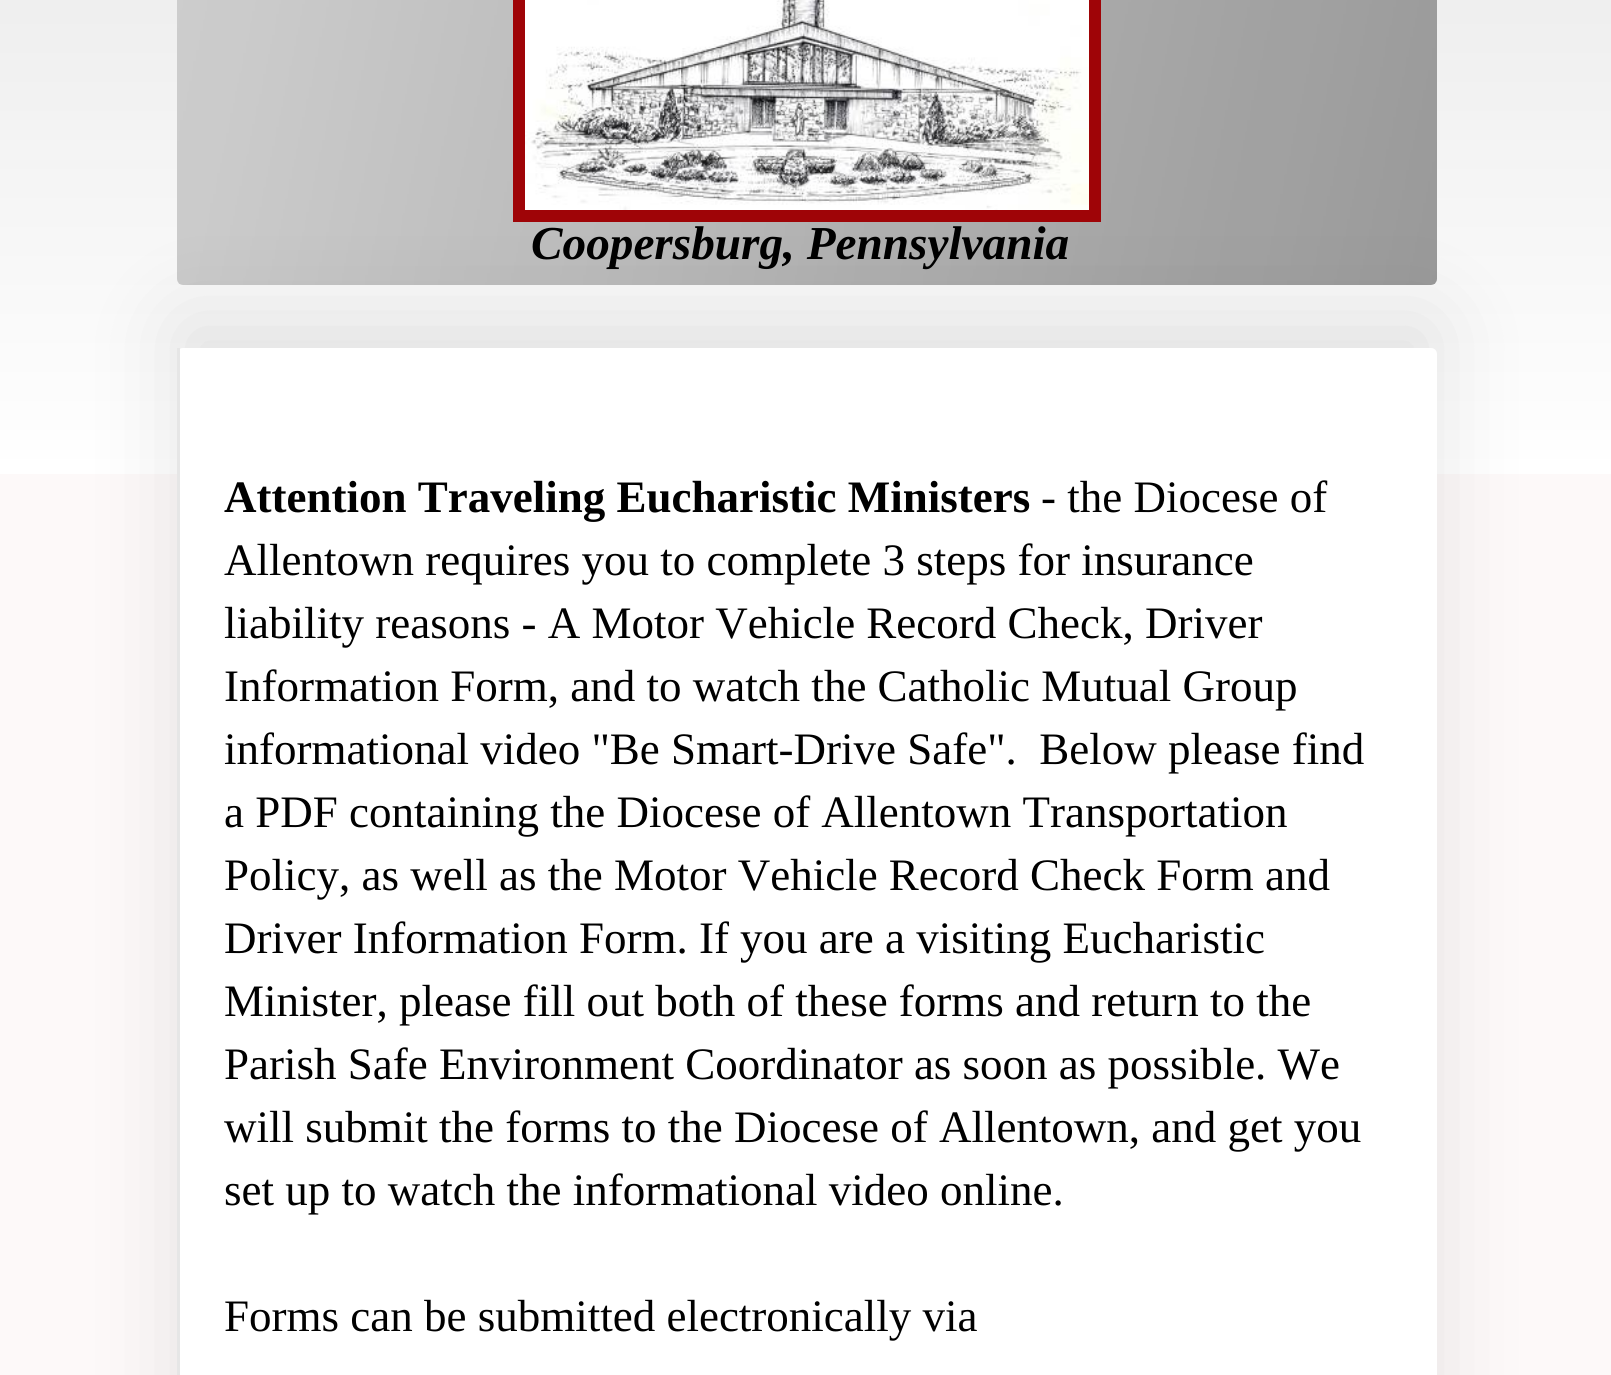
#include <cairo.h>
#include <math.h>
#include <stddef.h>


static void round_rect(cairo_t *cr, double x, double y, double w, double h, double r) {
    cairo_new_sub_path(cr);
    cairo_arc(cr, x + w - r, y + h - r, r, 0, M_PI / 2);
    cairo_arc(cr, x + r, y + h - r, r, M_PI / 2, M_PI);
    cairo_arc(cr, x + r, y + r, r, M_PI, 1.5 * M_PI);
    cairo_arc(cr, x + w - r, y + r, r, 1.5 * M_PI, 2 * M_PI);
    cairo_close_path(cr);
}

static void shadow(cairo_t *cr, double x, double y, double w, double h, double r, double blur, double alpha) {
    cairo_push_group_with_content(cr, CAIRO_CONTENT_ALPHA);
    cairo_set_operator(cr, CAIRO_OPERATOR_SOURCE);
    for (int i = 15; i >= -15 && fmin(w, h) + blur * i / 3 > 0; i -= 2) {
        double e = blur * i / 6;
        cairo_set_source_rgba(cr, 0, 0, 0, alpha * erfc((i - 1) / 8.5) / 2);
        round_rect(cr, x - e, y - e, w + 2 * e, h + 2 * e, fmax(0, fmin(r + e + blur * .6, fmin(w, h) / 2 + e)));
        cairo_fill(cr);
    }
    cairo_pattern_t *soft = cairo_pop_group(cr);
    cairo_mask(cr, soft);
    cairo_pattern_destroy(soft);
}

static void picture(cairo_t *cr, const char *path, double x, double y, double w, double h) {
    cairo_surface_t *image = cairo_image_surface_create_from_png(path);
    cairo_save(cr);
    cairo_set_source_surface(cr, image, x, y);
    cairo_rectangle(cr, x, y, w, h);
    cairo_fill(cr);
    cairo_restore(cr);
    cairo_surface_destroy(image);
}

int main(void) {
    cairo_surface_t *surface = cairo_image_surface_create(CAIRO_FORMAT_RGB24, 1611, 1375);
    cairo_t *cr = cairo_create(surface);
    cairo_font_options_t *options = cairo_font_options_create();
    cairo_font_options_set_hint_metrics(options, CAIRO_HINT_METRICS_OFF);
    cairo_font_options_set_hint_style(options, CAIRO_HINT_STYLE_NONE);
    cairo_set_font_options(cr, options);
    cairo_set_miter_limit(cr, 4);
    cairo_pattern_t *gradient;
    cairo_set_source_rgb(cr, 0.992, 0.976, 0.976);
    cairo_paint(cr);
    gradient = cairo_pattern_create_linear(0, 474, 0, -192);
    cairo_pattern_add_color_stop_rgba(gradient, 0, 1, 1, 1, 1);
    cairo_pattern_add_color_stop_rgba(gradient, 1, 0.91, 0.91, 0.91, 1);
    cairo_set_source(cr, gradient);
    cairo_pattern_destroy(gradient);
    cairo_rectangle(cr, 0, 0, 1611, 474);
    cairo_fill(cr);
    cairo_set_source_rgb(cr, 0.933, 0.933, 0.933);
    round_rect(cr, 177, -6, 1260, 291, 6);
    cairo_fill(cr);
    picture(cr, "img2.png", 177, 0, 1260, 285);
    cairo_set_source_rgb(cr, 0, 0, 0);
    shadow(cr, 177, 318, 1260, 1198, 6, 45, 0.1);
    cairo_rectangle(cr, 519, -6, 576, 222);
    cairo_set_source_rgb(cr, 0.624, 0.016, 0.031);
    cairo_set_line_width(cr, 12);
    cairo_stroke(cr);
    picture(cr, "img1.png", 525, 0, 564, 210);
    cairo_select_font_face(cr, "Liberation Serif", CAIRO_FONT_SLANT_ITALIC, CAIRO_FONT_WEIGHT_BOLD);
    cairo_set_font_size(cr, 47.25);
    cairo_set_source_rgb(cr, 0, 0, 0);
    cairo_move_to(cr, 531, 259);
    cairo_show_text(cr, "Coopersburg, Pennsylvania");
    cairo_set_source_rgb(cr, 1, 1, 1);
    round_rect(cr, 177, 348, 1260, 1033, 6);
    cairo_fill(cr);
    cairo_set_source_rgb(cr, 0.902, 0.902, 0.902);
    cairo_rectangle(cr, 177, 348, 3, 1027);
    cairo_fill(cr);
    cairo_select_font_face(cr, "Liberation Serif", CAIRO_FONT_SLANT_NORMAL, CAIRO_FONT_WEIGHT_BOLD);
    cairo_set_font_size(cr, 45);
    cairo_set_source_rgb(cr, 0, 0, 0);
    cairo_move_to(cr, 224, 512);
    cairo_show_text(cr, "Attention Traveling Eucharistic Ministers");
    cairo_select_font_face(cr, "Liberation Serif", CAIRO_FONT_SLANT_NORMAL, CAIRO_FONT_WEIGHT_NORMAL);
    cairo_move_to(cr, 1041, 512);
    cairo_show_text(cr, "- the Diocese of");
    cairo_move_to(cr, 224, 575);
    cairo_show_text(cr, "Allentown requires you to complete 3 steps for insurance");
    cairo_move_to(cr, 224, 638);
    cairo_show_text(cr, "liability reasons - A Motor Vehicle Record Check, Driver");
    cairo_move_to(cr, 224, 701);
    cairo_show_text(cr, "Information Form, and to watch the Catholic Mutual Group");
    cairo_move_to(cr, 224, 764);
    cairo_show_text(cr, "informational video \"Be Smart-Drive Safe\".  Below please find");
    cairo_move_to(cr, 224, 827);
    cairo_show_text(cr, "a PDF containing the Diocese of Allentown Transportation");
    cairo_move_to(cr, 224, 890);
    cairo_show_text(cr, "Policy, as well as the Motor Vehicle Record Check Form and");
    cairo_move_to(cr, 224, 953);
    cairo_show_text(cr, "Driver Information Form. If you are a visiting Eucharistic");
    cairo_move_to(cr, 224, 1016);
    cairo_show_text(cr, "Minister, please fill out both of these forms and return to the");
    cairo_move_to(cr, 224, 1079);
    cairo_show_text(cr, "Parish Safe Environment Coordinator as soon as possible. We");
    cairo_move_to(cr, 224, 1142);
    cairo_show_text(cr, "will submit the forms to the Diocese of Allentown, and get you");
    cairo_move_to(cr, 224, 1205);
    cairo_show_text(cr, "set up to watch the informational video online.");
    cairo_move_to(cr, 224, 1331);
    cairo_show_text(cr, "Forms can be submitted electronically via");
    cairo_surface_write_to_png(surface, "page.png");
    cairo_font_options_destroy(options);
    cairo_destroy(cr);
    cairo_surface_destroy(surface);
    return 0;
}
